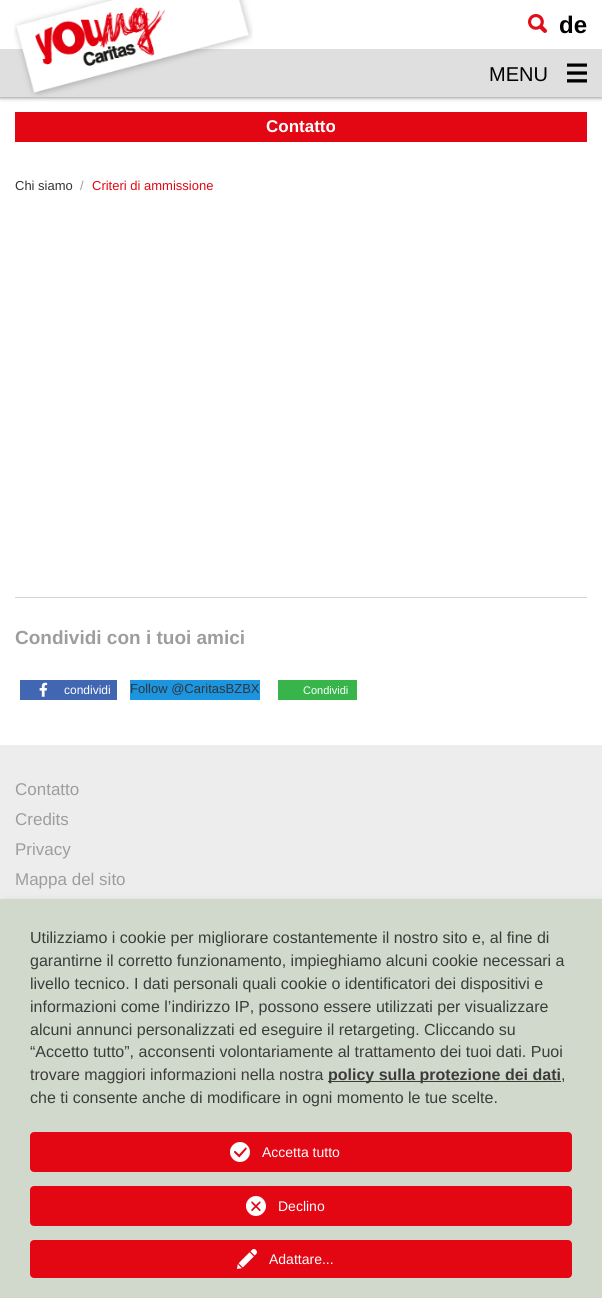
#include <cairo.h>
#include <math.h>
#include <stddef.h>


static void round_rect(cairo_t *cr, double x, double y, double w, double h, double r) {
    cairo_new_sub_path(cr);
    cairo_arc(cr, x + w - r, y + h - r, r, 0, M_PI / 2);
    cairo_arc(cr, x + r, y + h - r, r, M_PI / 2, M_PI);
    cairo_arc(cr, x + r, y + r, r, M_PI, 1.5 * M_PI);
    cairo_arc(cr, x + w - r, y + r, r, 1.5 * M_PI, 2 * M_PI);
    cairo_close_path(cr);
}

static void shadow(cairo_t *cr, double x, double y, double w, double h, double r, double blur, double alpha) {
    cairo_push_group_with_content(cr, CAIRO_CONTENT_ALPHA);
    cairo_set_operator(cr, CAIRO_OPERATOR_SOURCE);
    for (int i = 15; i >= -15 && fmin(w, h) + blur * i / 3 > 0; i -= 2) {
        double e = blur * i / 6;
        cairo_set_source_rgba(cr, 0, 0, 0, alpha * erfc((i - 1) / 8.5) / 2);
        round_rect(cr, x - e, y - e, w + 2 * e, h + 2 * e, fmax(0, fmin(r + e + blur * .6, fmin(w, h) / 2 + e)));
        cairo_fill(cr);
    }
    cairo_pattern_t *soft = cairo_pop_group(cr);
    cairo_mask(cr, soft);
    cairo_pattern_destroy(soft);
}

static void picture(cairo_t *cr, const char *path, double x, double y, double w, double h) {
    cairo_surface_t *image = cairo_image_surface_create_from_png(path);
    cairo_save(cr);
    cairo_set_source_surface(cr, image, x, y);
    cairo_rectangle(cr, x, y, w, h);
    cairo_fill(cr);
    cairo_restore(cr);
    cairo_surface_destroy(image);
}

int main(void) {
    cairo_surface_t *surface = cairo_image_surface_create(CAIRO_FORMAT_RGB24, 602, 1298);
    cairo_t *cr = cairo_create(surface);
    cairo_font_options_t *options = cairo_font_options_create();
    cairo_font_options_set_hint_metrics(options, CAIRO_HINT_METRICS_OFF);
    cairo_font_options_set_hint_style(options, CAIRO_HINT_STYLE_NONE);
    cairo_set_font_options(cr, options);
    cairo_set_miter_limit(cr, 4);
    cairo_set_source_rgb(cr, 1, 1, 1);
    cairo_paint(cr);
    cairo_save(cr);
    cairo_rectangle(cr, 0, 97, 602, 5);
    cairo_clip(cr);
    cairo_set_source_rgb(cr, 0.196, 0.196, 0.196);
    shadow(cr, 0, 0, 602, 97, 0, 2.5, 0.75);
    cairo_restore(cr);
    cairo_set_source_rgb(cr, 0.875, 0.875, 0.875);
    cairo_rectangle(cr, 0, 49, 602, 48);
    cairo_fill(cr);
    picture(cr, "img1.png", 14, 0, 239, 97);
    picture(cr, "img2.png", 528, 14, 19, 19);
    cairo_select_font_face(cr, "Liberation Sans", CAIRO_FONT_SLANT_NORMAL, CAIRO_FONT_WEIGHT_BOLD);
    cairo_set_font_size(cr, 24);
    cairo_set_source_rgb(cr, 0, 0, 0);
    cairo_move_to(cr, 559, 33);
    cairo_show_text(cr, "de");
    picture(cr, "img3.png", 567, 63, 20, 20);
    cairo_select_font_face(cr, "Liberation Sans", CAIRO_FONT_SLANT_NORMAL, CAIRO_FONT_WEIGHT_NORMAL);
    cairo_set_font_size(cr, 20);
    cairo_move_to(cr, 489, 81);
    cairo_show_text(cr, "MENU");
    cairo_set_source_rgb(cr, 0.89, 0.024, 0.075);
    cairo_rectangle(cr, 15, 112, 572, 30);
    cairo_fill(cr);
    cairo_select_font_face(cr, "Liberation Sans", CAIRO_FONT_SLANT_NORMAL, CAIRO_FONT_WEIGHT_BOLD);
    cairo_set_font_size(cr, 17);
    cairo_set_source_rgb(cr, 1, 1, 1);
    cairo_move_to(cr, 266, 132);
    cairo_show_text(cr, "Contatto");
    cairo_select_font_face(cr, "Liberation Sans", CAIRO_FONT_SLANT_NORMAL, CAIRO_FONT_WEIGHT_NORMAL);
    cairo_set_font_size(cr, 13);
    cairo_set_source_rgb(cr, 0.204, 0.204, 0.204);
    cairo_move_to(cr, 15, 190);
    cairo_show_text(cr, "Chi siamo");
    cairo_set_source_rgb(cr, 0.616, 0.616, 0.616);
    cairo_move_to(cr, 80, 190);
    cairo_show_text(cr, "/");
    cairo_set_source_rgb(cr, 0.89, 0.024, 0.075);
    cairo_move_to(cr, 92, 190);
    cairo_show_text(cr, "Criteri di ammissione");
    cairo_set_source_rgb(cr, 0.831, 0.831, 0.831);
    cairo_rectangle(cr, 15, 597, 572, 1);
    cairo_fill(cr);
    cairo_select_font_face(cr, "Liberation Sans", CAIRO_FONT_SLANT_NORMAL, CAIRO_FONT_WEIGHT_BOLD);
    cairo_set_font_size(cr, 19);
    cairo_set_source_rgb(cr, 0.616, 0.616, 0.616);
    cairo_move_to(cr, 15, 644);
    cairo_show_text(cr, "Condividi con i tuoi amici");
    cairo_set_source_rgb(cr, 0.259, 0.404, 0.698);
    cairo_rectangle(cr, 20, 680, 97, 20);
    cairo_fill(cr);
    picture(cr, "img4.png", 39, 682, 9, 15);
    cairo_select_font_face(cr, "Liberation Sans", CAIRO_FONT_SLANT_NORMAL, CAIRO_FONT_WEIGHT_NORMAL);
    cairo_set_font_size(cr, 12);
    cairo_set_source_rgb(cr, 1, 1, 1);
    cairo_move_to(cr, 64, 694);
    cairo_show_text(cr, "condividi");
    cairo_set_source_rgb(cr, 0.106, 0.584, 0.878);
    cairo_rectangle(cr, 130, 680, 130, 20);
    cairo_fill(cr);
    cairo_set_font_size(cr, 13);
    cairo_set_source_rgb(cr, 0.204, 0.204, 0.204);
    cairo_move_to(cr, 130, 693);
    cairo_show_text(cr, "Follow @CaritasBZBX");
    cairo_set_source_rgb(cr, 0.216, 0.71, 0.29);
    cairo_rectangle(cr, 278, 680, 79, 20);
    cairo_fill(cr);
    cairo_set_font_size(cr, 11);
    cairo_set_source_rgb(cr, 1, 1, 1);
    cairo_move_to(cr, 303, 694);
    cairo_show_text(cr, "Condividi");
    cairo_set_source_rgb(cr, 0.929, 0.929, 0.929);
    cairo_rectangle(cr, 0, 745, 602, 154);
    cairo_fill(cr);
    cairo_set_font_size(cr, 17);
    cairo_set_source_rgb(cr, 0.616, 0.616, 0.616);
    cairo_move_to(cr, 15, 795);
    cairo_show_text(cr, "Contatto");
    cairo_move_to(cr, 15, 825);
    cairo_show_text(cr, "Credits");
    cairo_move_to(cr, 15, 855);
    cairo_show_text(cr, "Privacy");
    cairo_move_to(cr, 15, 885);
    cairo_show_text(cr, "Mappa del sito");
    cairo_set_source_rgb(cr, 0, 0, 0);
    shadow(cr, 5, 904, 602, 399, 0, 5, 0.19);
    cairo_set_source_rgb(cr, 0.82, 0.851, 0.8);
    cairo_rectangle(cr, 0, 899, 602, 399);
    cairo_fill(cr);
    cairo_set_font_size(cr, 16);
    cairo_set_source_rgb(cr, 0.235, 0.235, 0.231);
    cairo_move_to(cr, 30, 943);
    cairo_show_text(cr, "Utilizziamo i cookie per migliorare costantemente il nostro sito e, al fine di");
    cairo_move_to(cr, 30, 966);
    cairo_show_text(cr, "garantirne il corretto funzionamento, impieghiamo alcuni cookie necessari a");
    cairo_move_to(cr, 30, 989);
    cairo_show_text(cr, "livello tecnico. I dati personali quali cookie o identificatori dei dispositivi e");
    cairo_move_to(cr, 30, 1012);
    cairo_show_text(cr, "informazioni come l’indirizzo IP, possono essere utilizzati per visualizzare");
    cairo_move_to(cr, 30, 1035);
    cairo_show_text(cr, "alcuni annunci personalizzati ed eseguire il retargeting. Cliccando su");
    cairo_move_to(cr, 30, 1057);
    cairo_show_text(cr, "“Accetto tutto”, acconsenti volontariamente al trattamento dei tuoi dati. Puoi");
    cairo_move_to(cr, 30, 1080);
    cairo_show_text(cr, "trovare maggiori informazioni nella nostra");
    cairo_rectangle(cr, 328, 1081, 233, 1);
    cairo_fill(cr);
    cairo_select_font_face(cr, "Liberation Sans", CAIRO_FONT_SLANT_NORMAL, CAIRO_FONT_WEIGHT_BOLD);
    cairo_move_to(cr, 328, 1080);
    cairo_show_text(cr, "policy sulla protezione dei dati");
    cairo_select_font_face(cr, "Liberation Sans", CAIRO_FONT_SLANT_NORMAL, CAIRO_FONT_WEIGHT_NORMAL);
    cairo_move_to(cr, 561, 1080);
    cairo_show_text(cr, ",");
    cairo_move_to(cr, 30, 1103);
    cairo_show_text(cr, "che ti consente anche di modificare in ogni momento le tue scelte.");
    cairo_set_source_rgb(cr, 0.89, 0.024, 0.075);
    round_rect(cr, 31, 1133, 540, 38, 3);
    cairo_fill_preserve(cr);
    cairo_stroke(cr);
    picture(cr, "img5.png", 230, 1142, 20, 20);
    cairo_set_font_size(cr, 14);
    cairo_set_source_rgb(cr, 1, 1, 1);
    cairo_move_to(cr, 262, 1157);
    cairo_show_text(cr, "Accetta tutto");
    cairo_set_source_rgb(cr, 0.89, 0.024, 0.075);
    round_rect(cr, 31, 1187, 540, 38, 3);
    cairo_fill_preserve(cr);
    cairo_stroke(cr);
    picture(cr, "img6.png", 246, 1196, 20, 20);
    cairo_set_source_rgb(cr, 1, 1, 1);
    cairo_move_to(cr, 278, 1211);
    cairo_show_text(cr, "Declino");
    cairo_set_source_rgb(cr, 0.89, 0.024, 0.075);
    round_rect(cr, 31, 1241, 540, 36, 3);
    cairo_fill_preserve(cr);
    cairo_stroke(cr);
    picture(cr, "img7.png", 237, 1249, 20, 20);
    cairo_set_source_rgb(cr, 1, 1, 1);
    cairo_move_to(cr, 269, 1264);
    cairo_show_text(cr, "Adattare...");
    cairo_surface_write_to_png(surface, "page.png");
    cairo_font_options_destroy(options);
    cairo_destroy(cr);
    cairo_surface_destroy(surface);
    return 0;
}
